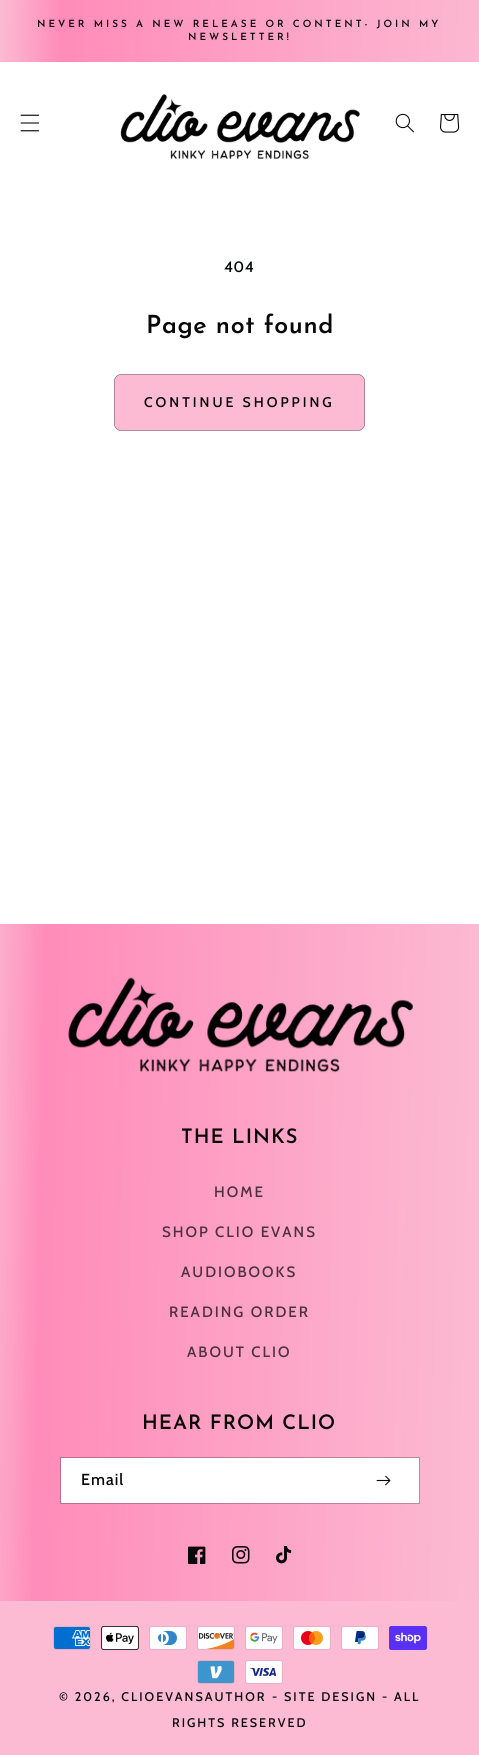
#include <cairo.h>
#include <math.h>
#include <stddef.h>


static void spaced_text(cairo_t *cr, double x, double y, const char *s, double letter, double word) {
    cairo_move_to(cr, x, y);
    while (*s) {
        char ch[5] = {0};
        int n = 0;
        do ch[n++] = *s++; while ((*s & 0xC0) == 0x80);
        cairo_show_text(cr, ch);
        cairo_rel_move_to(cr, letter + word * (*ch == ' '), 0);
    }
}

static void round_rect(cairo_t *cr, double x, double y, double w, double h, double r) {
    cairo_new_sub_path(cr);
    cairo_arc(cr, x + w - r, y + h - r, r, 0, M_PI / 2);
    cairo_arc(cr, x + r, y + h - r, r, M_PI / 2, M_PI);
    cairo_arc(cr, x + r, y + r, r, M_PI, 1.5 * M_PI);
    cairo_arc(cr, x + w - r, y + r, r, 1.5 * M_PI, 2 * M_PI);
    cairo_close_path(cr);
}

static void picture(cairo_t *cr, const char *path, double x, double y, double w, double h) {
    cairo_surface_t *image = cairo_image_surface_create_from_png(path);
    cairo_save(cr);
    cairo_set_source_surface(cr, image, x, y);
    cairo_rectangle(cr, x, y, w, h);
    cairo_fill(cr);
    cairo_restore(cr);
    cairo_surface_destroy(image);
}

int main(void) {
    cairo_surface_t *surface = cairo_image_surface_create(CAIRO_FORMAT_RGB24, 479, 1755);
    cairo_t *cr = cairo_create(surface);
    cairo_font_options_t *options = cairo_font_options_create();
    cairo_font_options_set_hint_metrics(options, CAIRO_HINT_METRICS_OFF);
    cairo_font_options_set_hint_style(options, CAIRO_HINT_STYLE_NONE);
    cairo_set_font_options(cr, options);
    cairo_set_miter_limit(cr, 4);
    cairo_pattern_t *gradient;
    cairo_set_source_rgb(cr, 1, 1, 1);
    cairo_paint(cr);
    gradient = cairo_pattern_create_linear(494, 882, -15, 873);
    cairo_pattern_add_color_stop_rgba(gradient, 0, 0.988, 0.733, 0.824, 1);
    cairo_pattern_add_color_stop_rgba(gradient, 0.88, 1, 0.549, 0.729, 1);
    cairo_pattern_add_color_stop_rgba(gradient, 1, 0.988, 0.733, 0.824, 1);
    cairo_set_source(cr, gradient);
    cairo_pattern_destroy(gradient);
    cairo_rectangle(cr, 0, 0, 479, 62);
    cairo_fill(cr);
    cairo_select_font_face(cr, "Josefin Sans SemiBold", CAIRO_FONT_SLANT_NORMAL, CAIRO_FONT_WEIGHT_NORMAL);
    cairo_set_font_size(cr, 10);
    cairo_set_source_rgb(cr, 0.039, 0.035, 0.035);
    spaced_text(cr, 37, 27, "NEVER MISS A NEW RELEASE OR CONTENT- JOIN MY", 3, 0);
    spaced_text(cr, 188, 40, "NEWSLETTER!", 3, 0);
    picture(cr, "img1.png", 20, 114, 20, 18);
    picture(cr, "img2.png", 120, 94, 240, 65);
    picture(cr, "img3.png", 395, 113, 19, 20);
    picture(cr, "img4.png", 440, 114, 20, 19);
    cairo_select_font_face(cr, "Cabin Medium", CAIRO_FONT_SLANT_NORMAL, CAIRO_FONT_WEIGHT_NORMAL);
    cairo_set_font_size(cr, 15);
    cairo_set_source_rgb(cr, 0.004, 0.008, 0.008);
    spaced_text(cr, 224, 272, "404", 0.6, 0);
    cairo_select_font_face(cr, "Josefin Sans SemiBold", CAIRO_FONT_SLANT_NORMAL, CAIRO_FONT_WEIGHT_NORMAL);
    cairo_set_font_size(cr, 25);
    cairo_set_source_rgb(cr, 0.039, 0.035, 0.035);
    spaced_text(cr, 146, 333, "Page not found", 0.6, 0);
    cairo_set_source_rgb(cr, 0.988, 0.733, 0.824);
    round_rect(cr, 114, 374, 251, 57, 8);
    cairo_fill(cr);
    round_rect(cr, 114.15, 374.15, 250.7, 56.7, 7.85);
    cairo_set_source_rgb(cr, 0.004, 0.008, 0.008);
    cairo_set_line_width(cr, 0.3);
    cairo_stroke(cr);
    cairo_select_font_face(cr, "Cabin Medium", CAIRO_FONT_SLANT_NORMAL, CAIRO_FONT_WEIGHT_NORMAL);
    cairo_set_font_size(cr, 14);
    spaced_text(cr, 144, 407, "CONTINUE SHOPPING", 3, 0);
    gradient = cairo_pattern_create_linear(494, 882, -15, 873);
    cairo_pattern_add_color_stop_rgba(gradient, 0, 0.988, 0.733, 0.824, 1);
    cairo_pattern_add_color_stop_rgba(gradient, 0.88, 1, 0.549, 0.729, 1);
    cairo_pattern_add_color_stop_rgba(gradient, 1, 0.988, 0.733, 0.824, 1);
    cairo_set_source(cr, gradient);
    cairo_pattern_destroy(gradient);
    cairo_rectangle(cr, 0, 924, 479, 677);
    cairo_fill(cr);
    picture(cr, "img5.png", 68, 977, 346, 96);
    cairo_select_font_face(cr, "Josefin Sans SemiBold", CAIRO_FONT_SLANT_NORMAL, CAIRO_FONT_WEIGHT_NORMAL);
    cairo_set_font_size(cr, 20);
    cairo_set_source_rgb(cr, 0.039, 0.035, 0.035);
    spaced_text(cr, 181, 1143, "THE LINKS", 1, 0);
    cairo_select_font_face(cr, "Cabin Medium", CAIRO_FONT_SLANT_NORMAL, CAIRO_FONT_WEIGHT_NORMAL);
    cairo_set_font_size(cr, 15);
    cairo_set_source_rgb(cr, 0.302, 0.196, 0.235);
    spaced_text(cr, 214, 1197, "HOME", 2, 0);
    spaced_text(cr, 162, 1237, "SHOP CLIO EVANS", 2, 0);
    spaced_text(cr, 181, 1277, "AUDIOBOOKS", 2, 0);
    spaced_text(cr, 169, 1317, "READING ORDER", 2, 0);
    spaced_text(cr, 187, 1357, "ABOUT CLIO", 2, 0);
    cairo_select_font_face(cr, "Josefin Sans SemiBold", CAIRO_FONT_SLANT_NORMAL, CAIRO_FONT_WEIGHT_NORMAL);
    cairo_set_font_size(cr, 20);
    cairo_set_source_rgb(cr, 0.039, 0.035, 0.035);
    spaced_text(cr, 142, 1429, "HEAR FROM CLIO", 1, 0);
    cairo_set_source_rgb(cr, 1, 1, 1);
    cairo_rectangle(cr, 61, 1458, 358, 45);
    cairo_fill(cr);
    cairo_rectangle(cr, 60.5, 1457.5, 359, 46);
    cairo_set_source_rgba(cr, 0.004, 0.008, 0.008, 0.25);
    cairo_set_line_width(cr, 1);
    cairo_stroke(cr);
    cairo_select_font_face(cr, "Cabin Medium", CAIRO_FONT_SLANT_NORMAL, CAIRO_FONT_WEIGHT_NORMAL);
    cairo_set_font_size(cr, 16);
    cairo_set_source_rgb(cr, 0.039, 0.035, 0.035);
    spaced_text(cr, 81, 1485, "Email", 1, 0);
    picture(cr, "img6.png", 376, 1475, 15, 11);
    picture(cr, "img7.png", 188, 1546, 18, 18);
    picture(cr, "img8.png", 232, 1546, 18, 18);
    picture(cr, "img9.png", 276, 1546, 16, 18);
    cairo_set_source_rgb(cr, 0.988, 0.733, 0.824);
    cairo_rectangle(cr, 0, 1601, 479, 154);
    cairo_fill(cr);
    picture(cr, "img10.png", 53, 1626, 38, 24);
    picture(cr, "img11.png", 101, 1626, 38, 24);
    picture(cr, "img12.png", 149, 1626, 38, 24);
    picture(cr, "img13.png", 197, 1626, 38, 24);
    picture(cr, "img14.png", 245, 1626, 38, 24);
    picture(cr, "img15.png", 293, 1626, 38, 24);
    picture(cr, "img16.png", 341, 1626, 38, 24);
    picture(cr, "img17.png", 389, 1626, 38, 24);
    picture(cr, "img18.png", 197, 1660, 38, 24);
    picture(cr, "img19.png", 245, 1660, 38, 24);
    cairo_set_font_size(cr, 12.5);
    cairo_set_source_rgb(cr, 0.039, 0.035, 0.035);
    spaced_text(cr, 59, 1701, "© 2026, CLIOEVANSAUTHOR", 2, 0);
    spaced_text(cr, 272, 1701, "- SITE DESIGN - ALL", 2, 0);
    spaced_text(cr, 172, 1727, "RIGHTS RESERVED", 2, 0);
    cairo_surface_write_to_png(surface, "page.png");
    cairo_font_options_destroy(options);
    cairo_destroy(cr);
    cairo_surface_destroy(surface);
    return 0;
}
